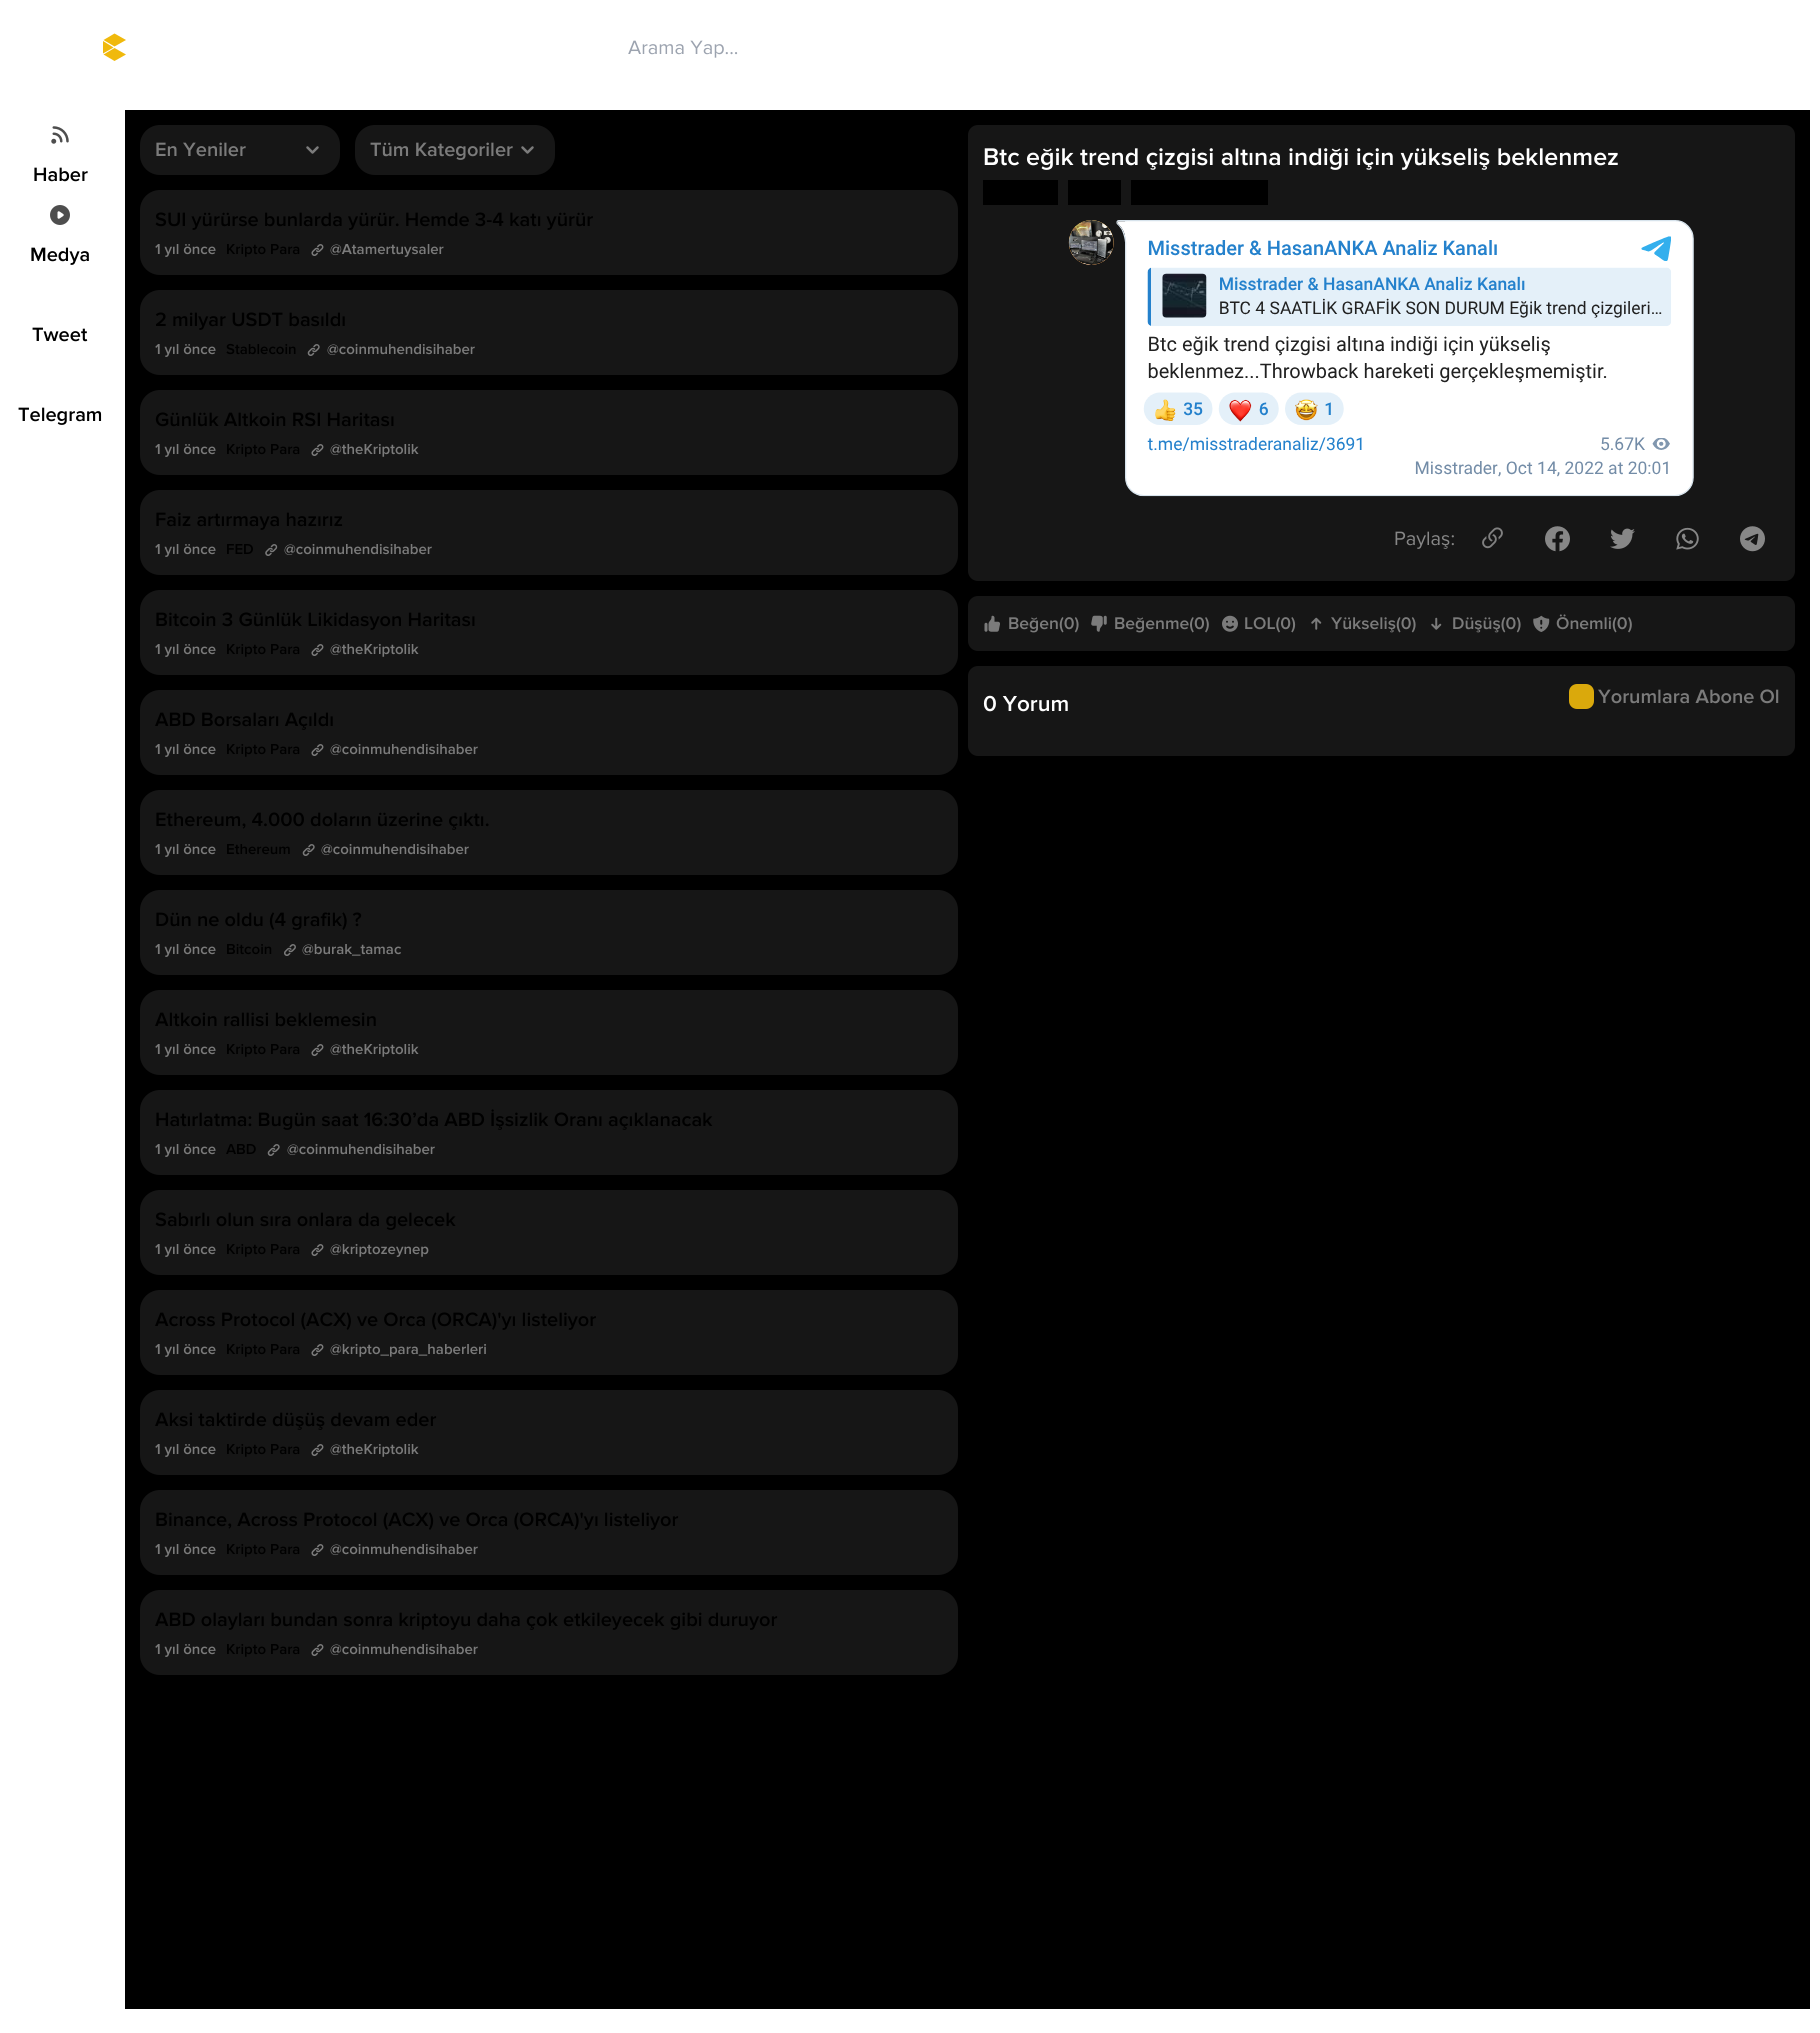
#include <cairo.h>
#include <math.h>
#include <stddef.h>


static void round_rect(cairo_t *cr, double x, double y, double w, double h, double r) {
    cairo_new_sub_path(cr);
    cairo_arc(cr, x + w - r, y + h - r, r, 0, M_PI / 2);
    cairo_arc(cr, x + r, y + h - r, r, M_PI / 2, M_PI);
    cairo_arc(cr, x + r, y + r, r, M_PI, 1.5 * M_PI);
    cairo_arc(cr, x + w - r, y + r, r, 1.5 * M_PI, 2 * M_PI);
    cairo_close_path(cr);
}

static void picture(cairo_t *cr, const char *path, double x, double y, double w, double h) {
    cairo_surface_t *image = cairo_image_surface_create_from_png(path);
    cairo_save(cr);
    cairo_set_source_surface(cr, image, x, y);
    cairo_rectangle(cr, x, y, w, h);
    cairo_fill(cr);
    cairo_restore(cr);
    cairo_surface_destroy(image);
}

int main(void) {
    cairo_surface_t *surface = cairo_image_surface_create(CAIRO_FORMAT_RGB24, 1820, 2033);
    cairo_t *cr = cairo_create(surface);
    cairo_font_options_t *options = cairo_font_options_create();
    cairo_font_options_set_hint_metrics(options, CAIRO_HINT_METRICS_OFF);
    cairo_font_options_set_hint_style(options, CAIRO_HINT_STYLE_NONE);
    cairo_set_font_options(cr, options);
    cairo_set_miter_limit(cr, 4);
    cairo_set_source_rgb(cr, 1, 1, 1);
    cairo_paint(cr);
    cairo_set_source_rgb(cr, 0.941, 0.725, 0.047);
    cairo_new_path(cr);
    cairo_move_to(cr, 114.5, 61);
    cairo_line_to(cr, 103.5, 54.5);
    cairo_line_to(cr, 114.5, 48);
    cairo_line_to(cr, 126, 54.5);
    cairo_close_path(cr);
    cairo_fill(cr);
    cairo_new_path(cr);
    cairo_move_to(cr, 103, 53.5);
    cairo_line_to(cr, 103, 41);
    cairo_line_to(cr, 113.5, 47.5);
    cairo_close_path(cr);
    cairo_fill(cr);
    cairo_new_path(cr);
    cairo_move_to(cr, 126, 40);
    cairo_line_to(cr, 114.5, 46.5);
    cairo_line_to(cr, 103.5, 40);
    cairo_line_to(cr, 114.5, 33.5);
    cairo_close_path(cr);
    cairo_fill(cr);
    cairo_select_font_face(cr, "Proxima Nova", CAIRO_FONT_SLANT_NORMAL, CAIRO_FONT_WEIGHT_NORMAL);
    cairo_set_font_size(cr, 20);
    cairo_set_source_rgb(cr, 0.612, 0.639, 0.686);
    cairo_move_to(cr, 628, 54);
    cairo_show_text(cr, "Arama Yap...");
    picture(cr, "img1.png", 51, 126, 18, 18);
    cairo_select_font_face(cr, "Proxima Nova SemiBold", CAIRO_FONT_SLANT_NORMAL, CAIRO_FONT_WEIGHT_NORMAL);
    cairo_set_source_rgb(cr, 0, 0, 0);
    cairo_move_to(cr, 33, 181);
    cairo_show_text(cr, "Haber");
    picture(cr, "img2.png", 50, 205, 20, 20);
    cairo_move_to(cr, 30, 261);
    cairo_show_text(cr, "Medya");
    cairo_move_to(cr, 32, 341);
    cairo_show_text(cr, "Tweet");
    cairo_move_to(cr, 18, 421);
    cairo_show_text(cr, "Telegram");
    cairo_rectangle(cr, 125, 110, 1685, 1899);
    cairo_fill(cr);
    cairo_set_source_rgb(cr, 0.086, 0.086, 0.086);
    round_rect(cr, 140, 125, 200, 50, 20);
    cairo_fill(cr);
    cairo_set_source_rgb(cr, 0.482, 0.482, 0.482);
    cairo_move_to(cr, 155, 156);
    cairo_show_text(cr, "En Yeniler");
    picture(cr, "img3.png", 306, 146, 13, 8);
    cairo_set_source_rgb(cr, 0.086, 0.086, 0.086);
    round_rect(cr, 355, 125, 200, 50, 20);
    cairo_fill(cr);
    cairo_set_source_rgb(cr, 0.482, 0.482, 0.482);
    cairo_move_to(cr, 370, 156);
    cairo_show_text(cr, "Tüm Kategoriler");
    picture(cr, "img3.png", 521, 146, 13, 8);
    cairo_set_source_rgb(cr, 0.086, 0.086, 0.086);
    round_rect(cr, 140, 190, 818, 85, 20);
    cairo_fill(cr);
    cairo_set_source_rgb(cr, 0, 0, 0);
    cairo_move_to(cr, 155, 226);
    cairo_show_text(cr, "SUI yürürse bunlarda yürür. Hemde 3-4 katı yürür");
    cairo_set_font_size(cr, 15);
    cairo_set_source_rgb(cr, 0.482, 0.482, 0.482);
    cairo_move_to(cr, 155, 254);
    cairo_show_text(cr, "1 yıl önce");
    cairo_set_source_rgb(cr, 0, 0, 0);
    cairo_move_to(cr, 226, 254);
    cairo_show_text(cr, "Kripto Para");
    picture(cr, "img4.png", 311, 244, 13, 12);
    cairo_set_source_rgb(cr, 0.482, 0.482, 0.482);
    cairo_move_to(cr, 330, 254);
    cairo_show_text(cr, "@Atamertuysaler");
    cairo_set_source_rgb(cr, 0.086, 0.086, 0.086);
    round_rect(cr, 140, 290, 818, 85, 20);
    cairo_fill(cr);
    cairo_set_font_size(cr, 20);
    cairo_set_source_rgb(cr, 0, 0, 0);
    cairo_move_to(cr, 155, 326);
    cairo_show_text(cr, "2 milyar USDT basıldı");
    cairo_set_font_size(cr, 15);
    cairo_set_source_rgb(cr, 0.482, 0.482, 0.482);
    cairo_move_to(cr, 155, 354);
    cairo_show_text(cr, "1 yıl önce");
    cairo_set_source_rgb(cr, 0, 0, 0);
    cairo_move_to(cr, 226, 354);
    cairo_show_text(cr, "Stablecoin");
    picture(cr, "img5.png", 307, 344, 13, 12);
    cairo_set_source_rgb(cr, 0.482, 0.482, 0.482);
    cairo_move_to(cr, 327, 354);
    cairo_show_text(cr, "@coinmuhendisihaber");
    cairo_set_source_rgb(cr, 0.086, 0.086, 0.086);
    round_rect(cr, 140, 390, 818, 85, 20);
    cairo_fill(cr);
    cairo_set_font_size(cr, 20);
    cairo_set_source_rgb(cr, 0, 0, 0);
    cairo_move_to(cr, 155, 426);
    cairo_show_text(cr, "Günlük Altkoin RSI Haritası");
    cairo_set_font_size(cr, 15);
    cairo_set_source_rgb(cr, 0.482, 0.482, 0.482);
    cairo_move_to(cr, 155, 454);
    cairo_show_text(cr, "1 yıl önce");
    cairo_set_source_rgb(cr, 0, 0, 0);
    cairo_move_to(cr, 226, 454);
    cairo_show_text(cr, "Kripto Para");
    picture(cr, "img4.png", 311, 444, 13, 12);
    cairo_set_source_rgb(cr, 0.482, 0.482, 0.482);
    cairo_move_to(cr, 330, 454);
    cairo_show_text(cr, "@theKriptolik");
    cairo_set_source_rgb(cr, 0.086, 0.086, 0.086);
    round_rect(cr, 140, 490, 818, 85, 20);
    cairo_fill(cr);
    cairo_set_font_size(cr, 20);
    cairo_set_source_rgb(cr, 0, 0, 0);
    cairo_move_to(cr, 155, 526);
    cairo_show_text(cr, "Faiz artırmaya hazırız");
    cairo_set_font_size(cr, 15);
    cairo_set_source_rgb(cr, 0.482, 0.482, 0.482);
    cairo_move_to(cr, 155, 554);
    cairo_show_text(cr, "1 yıl önce");
    cairo_set_source_rgb(cr, 0, 0, 0);
    cairo_move_to(cr, 226, 554);
    cairo_show_text(cr, "FED");
    picture(cr, "img6.png", 265, 544, 13, 12);
    cairo_set_source_rgb(cr, 0.482, 0.482, 0.482);
    cairo_move_to(cr, 284, 554);
    cairo_show_text(cr, "@coinmuhendisihaber");
    cairo_set_source_rgb(cr, 0.086, 0.086, 0.086);
    round_rect(cr, 140, 590, 818, 85, 20);
    cairo_fill(cr);
    cairo_set_font_size(cr, 20);
    cairo_set_source_rgb(cr, 0, 0, 0);
    cairo_move_to(cr, 155, 626);
    cairo_show_text(cr, "Bitcoin 3 Günlük Likidasyon Haritası");
    cairo_set_font_size(cr, 15);
    cairo_set_source_rgb(cr, 0.482, 0.482, 0.482);
    cairo_move_to(cr, 155, 654);
    cairo_show_text(cr, "1 yıl önce");
    cairo_set_source_rgb(cr, 0, 0, 0);
    cairo_move_to(cr, 226, 654);
    cairo_show_text(cr, "Kripto Para");
    picture(cr, "img4.png", 311, 644, 13, 12);
    cairo_set_source_rgb(cr, 0.482, 0.482, 0.482);
    cairo_move_to(cr, 330, 654);
    cairo_show_text(cr, "@theKriptolik");
    cairo_set_source_rgb(cr, 0.086, 0.086, 0.086);
    round_rect(cr, 140, 690, 818, 85, 20);
    cairo_fill(cr);
    cairo_set_font_size(cr, 20);
    cairo_set_source_rgb(cr, 0, 0, 0);
    cairo_move_to(cr, 155, 726);
    cairo_show_text(cr, "ABD Borsaları Açıldı");
    cairo_set_font_size(cr, 15);
    cairo_set_source_rgb(cr, 0.482, 0.482, 0.482);
    cairo_move_to(cr, 155, 754);
    cairo_show_text(cr, "1 yıl önce");
    cairo_set_source_rgb(cr, 0, 0, 0);
    cairo_move_to(cr, 226, 754);
    cairo_show_text(cr, "Kripto Para");
    picture(cr, "img4.png", 311, 744, 13, 12);
    cairo_set_source_rgb(cr, 0.482, 0.482, 0.482);
    cairo_move_to(cr, 330, 754);
    cairo_show_text(cr, "@coinmuhendisihaber");
    cairo_set_source_rgb(cr, 0.086, 0.086, 0.086);
    round_rect(cr, 140, 790, 818, 85, 20);
    cairo_fill(cr);
    cairo_set_font_size(cr, 20);
    cairo_set_source_rgb(cr, 0, 0, 0);
    cairo_move_to(cr, 155, 826);
    cairo_show_text(cr, "Ethereum, 4.000 doların üzerine çıktı.");
    cairo_set_font_size(cr, 15);
    cairo_set_source_rgb(cr, 0.482, 0.482, 0.482);
    cairo_move_to(cr, 155, 854);
    cairo_show_text(cr, "1 yıl önce");
    cairo_set_source_rgb(cr, 0, 0, 0);
    cairo_move_to(cr, 226, 854);
    cairo_show_text(cr, "Ethereum");
    picture(cr, "img5.png", 302, 844, 13, 12);
    cairo_set_source_rgb(cr, 0.482, 0.482, 0.482);
    cairo_move_to(cr, 321, 854);
    cairo_show_text(cr, "@coinmuhendisihaber");
    cairo_set_source_rgb(cr, 0.086, 0.086, 0.086);
    round_rect(cr, 140, 890, 818, 85, 20);
    cairo_fill(cr);
    cairo_set_font_size(cr, 20);
    cairo_set_source_rgb(cr, 0, 0, 0);
    cairo_move_to(cr, 155, 926);
    cairo_show_text(cr, "Dün ne oldu (4 grafik) ?");
    cairo_set_font_size(cr, 15);
    cairo_set_source_rgb(cr, 0.482, 0.482, 0.482);
    cairo_move_to(cr, 155, 954);
    cairo_show_text(cr, "1 yıl önce");
    cairo_set_source_rgb(cr, 0, 0, 0);
    cairo_move_to(cr, 226, 954);
    cairo_show_text(cr, "Bitcoin");
    picture(cr, "img7.png", 284, 944, 12, 12);
    cairo_set_source_rgb(cr, 0.482, 0.482, 0.482);
    cairo_move_to(cr, 302, 954);
    cairo_show_text(cr, "@burak_tamac");
    cairo_set_source_rgb(cr, 0.086, 0.086, 0.086);
    round_rect(cr, 140, 990, 818, 85, 20);
    cairo_fill(cr);
    cairo_set_font_size(cr, 20);
    cairo_set_source_rgb(cr, 0, 0, 0);
    cairo_move_to(cr, 155, 1026);
    cairo_show_text(cr, "Altkoin rallisi beklemesin");
    cairo_set_font_size(cr, 15);
    cairo_set_source_rgb(cr, 0.482, 0.482, 0.482);
    cairo_move_to(cr, 155, 1054);
    cairo_show_text(cr, "1 yıl önce");
    cairo_set_source_rgb(cr, 0, 0, 0);
    cairo_move_to(cr, 226, 1054);
    cairo_show_text(cr, "Kripto Para");
    picture(cr, "img4.png", 311, 1044, 13, 12);
    cairo_set_source_rgb(cr, 0.482, 0.482, 0.482);
    cairo_move_to(cr, 330, 1054);
    cairo_show_text(cr, "@theKriptolik");
    cairo_set_source_rgb(cr, 0.086, 0.086, 0.086);
    round_rect(cr, 140, 1090, 818, 85, 20);
    cairo_fill(cr);
    cairo_set_font_size(cr, 20);
    cairo_set_source_rgb(cr, 0, 0, 0);
    cairo_move_to(cr, 155, 1126);
    cairo_show_text(cr, "Hatırlatma: Bugün saat 16:30’da ABD İşsizlik Oranı açıklanacak");
    cairo_set_font_size(cr, 15);
    cairo_set_source_rgb(cr, 0.482, 0.482, 0.482);
    cairo_move_to(cr, 155, 1154);
    cairo_show_text(cr, "1 yıl önce");
    cairo_set_source_rgb(cr, 0, 0, 0);
    cairo_move_to(cr, 226, 1154);
    cairo_show_text(cr, "ABD");
    picture(cr, "img5.png", 267, 1144, 13, 12);
    cairo_set_source_rgb(cr, 0.482, 0.482, 0.482);
    cairo_move_to(cr, 287, 1154);
    cairo_show_text(cr, "@coinmuhendisihaber");
    cairo_set_source_rgb(cr, 0.086, 0.086, 0.086);
    round_rect(cr, 140, 1190, 818, 85, 20);
    cairo_fill(cr);
    cairo_set_font_size(cr, 20);
    cairo_set_source_rgb(cr, 0, 0, 0);
    cairo_move_to(cr, 155, 1226);
    cairo_show_text(cr, "Sabırlı olun sıra onlara da gelecek");
    cairo_set_font_size(cr, 15);
    cairo_set_source_rgb(cr, 0.482, 0.482, 0.482);
    cairo_move_to(cr, 155, 1254);
    cairo_show_text(cr, "1 yıl önce");
    cairo_set_source_rgb(cr, 0, 0, 0);
    cairo_move_to(cr, 226, 1254);
    cairo_show_text(cr, "Kripto Para");
    picture(cr, "img4.png", 311, 1244, 13, 12);
    cairo_set_source_rgb(cr, 0.482, 0.482, 0.482);
    cairo_move_to(cr, 330, 1254);
    cairo_show_text(cr, "@kriptozeynep");
    cairo_set_source_rgb(cr, 0.086, 0.086, 0.086);
    round_rect(cr, 140, 1290, 818, 85, 20);
    cairo_fill(cr);
    cairo_set_font_size(cr, 20);
    cairo_set_source_rgb(cr, 0, 0, 0);
    cairo_move_to(cr, 155, 1326);
    cairo_show_text(cr, "Across Protocol (ACX) ve Orca (ORCA)'yı listeliyor");
    cairo_set_font_size(cr, 15);
    cairo_set_source_rgb(cr, 0.482, 0.482, 0.482);
    cairo_move_to(cr, 155, 1354);
    cairo_show_text(cr, "1 yıl önce");
    cairo_set_source_rgb(cr, 0, 0, 0);
    cairo_move_to(cr, 226, 1354);
    cairo_show_text(cr, "Kripto Para");
    picture(cr, "img4.png", 311, 1344, 13, 12);
    cairo_set_source_rgb(cr, 0.482, 0.482, 0.482);
    cairo_move_to(cr, 330, 1354);
    cairo_show_text(cr, "@kripto_para_haberleri");
    cairo_set_source_rgb(cr, 0.086, 0.086, 0.086);
    round_rect(cr, 140, 1390, 818, 85, 20);
    cairo_fill(cr);
    cairo_set_font_size(cr, 20);
    cairo_set_source_rgb(cr, 0, 0, 0);
    cairo_move_to(cr, 155, 1426);
    cairo_show_text(cr, "Aksi taktirde düşüş devam eder");
    cairo_set_font_size(cr, 15);
    cairo_set_source_rgb(cr, 0.482, 0.482, 0.482);
    cairo_move_to(cr, 155, 1454);
    cairo_show_text(cr, "1 yıl önce");
    cairo_set_source_rgb(cr, 0, 0, 0);
    cairo_move_to(cr, 226, 1454);
    cairo_show_text(cr, "Kripto Para");
    picture(cr, "img4.png", 311, 1444, 13, 12);
    cairo_set_source_rgb(cr, 0.482, 0.482, 0.482);
    cairo_move_to(cr, 330, 1454);
    cairo_show_text(cr, "@theKriptolik");
    cairo_set_source_rgb(cr, 0.086, 0.086, 0.086);
    round_rect(cr, 140, 1490, 818, 85, 20);
    cairo_fill(cr);
    cairo_set_font_size(cr, 20);
    cairo_set_source_rgb(cr, 0, 0, 0);
    cairo_move_to(cr, 155, 1526);
    cairo_show_text(cr, "Binance, Across Protocol (ACX) ve Orca (ORCA)'yı listeliyor");
    cairo_set_font_size(cr, 15);
    cairo_set_source_rgb(cr, 0.482, 0.482, 0.482);
    cairo_move_to(cr, 155, 1554);
    cairo_show_text(cr, "1 yıl önce");
    cairo_set_source_rgb(cr, 0, 0, 0);
    cairo_move_to(cr, 226, 1554);
    cairo_show_text(cr, "Kripto Para");
    picture(cr, "img4.png", 311, 1544, 13, 12);
    cairo_set_source_rgb(cr, 0.482, 0.482, 0.482);
    cairo_move_to(cr, 330, 1554);
    cairo_show_text(cr, "@coinmuhendisihaber");
    cairo_set_source_rgb(cr, 0.086, 0.086, 0.086);
    round_rect(cr, 140, 1590, 818, 85, 20);
    cairo_fill(cr);
    cairo_set_font_size(cr, 20);
    cairo_set_source_rgb(cr, 0, 0, 0);
    cairo_move_to(cr, 155, 1626);
    cairo_show_text(cr, "ABD olayları bundan sonra kriptoyu daha çok etkileyecek gibi duruyor");
    cairo_set_font_size(cr, 15);
    cairo_set_source_rgb(cr, 0.482, 0.482, 0.482);
    cairo_move_to(cr, 155, 1654);
    cairo_show_text(cr, "1 yıl önce");
    cairo_set_source_rgb(cr, 0, 0, 0);
    cairo_move_to(cr, 226, 1654);
    cairo_show_text(cr, "Kripto Para");
    picture(cr, "img4.png", 311, 1644, 13, 12);
    cairo_set_source_rgb(cr, 0.482, 0.482, 0.482);
    cairo_move_to(cr, 330, 1654);
    cairo_show_text(cr, "@coinmuhendisihaber");
    cairo_set_source_rgb(cr, 0.086, 0.086, 0.086);
    round_rect(cr, 968, 125, 827, 456, 10);
    cairo_fill(cr);
    cairo_set_font_size(cr, 25);
    cairo_set_source_rgb(cr, 1, 1, 1);
    cairo_move_to(cr, 983, 165);
    cairo_show_text(cr, "Btc eğik trend çizgisi altına indiği için yükseliş beklenmez");
    cairo_set_source_rgb(cr, 0, 0, 0);
    cairo_rectangle(cr, 983, 180, 75, 25);
    cairo_fill(cr);
    cairo_rectangle(cr, 1068, 180, 53, 25);
    cairo_fill(cr);
    cairo_rectangle(cr, 1131, 180, 137, 25);
    cairo_fill(cr);
    picture(cr, "img8.png", 1068, 220, 626, 277);
    cairo_select_font_face(cr, "Proxima Nova", CAIRO_FONT_SLANT_NORMAL, CAIRO_FONT_WEIGHT_NORMAL);
    cairo_set_font_size(cr, 20);
    cairo_set_source_rgb(cr, 0.529, 0.529, 0.529);
    cairo_move_to(cr, 1394, 545);
    cairo_show_text(cr, "Paylaş:");
    picture(cr, "img9.png", 1482, 527, 21, 22);
    picture(cr, "img10.png", 1545, 526, 25, 26);
    picture(cr, "img11.png", 1610, 528, 25, 21);
    picture(cr, "img12.png", 1676, 527, 23, 23);
    picture(cr, "img13.png", 1740, 526, 25, 26);
    cairo_set_source_rgb(cr, 0.086, 0.086, 0.086);
    round_rect(cr, 968, 596, 827, 55, 10);
    cairo_fill(cr);
    picture(cr, "img14.png", 984, 615, 16, 17);
    cairo_select_font_face(cr, "Proxima Nova SemiBold", CAIRO_FONT_SLANT_NORMAL, CAIRO_FONT_WEIGHT_NORMAL);
    cairo_set_font_size(cr, 17.5);
    cairo_set_source_rgb(cr, 0.482, 0.482, 0.482);
    cairo_move_to(cr, 1008, 629);
    cairo_show_text(cr, "Beğen(0)");
    picture(cr, "img15.png", 1091, 615, 16, 17);
    cairo_move_to(cr, 1114, 629);
    cairo_show_text(cr, "Beğenme(0)");
    picture(cr, "img16.png", 1222, 615, 16, 17);
    cairo_move_to(cr, 1244, 629);
    cairo_show_text(cr, "LOL(0)");
    picture(cr, "img17.png", 1311, 617, 11, 13);
    cairo_move_to(cr, 1331, 629);
    cairo_show_text(cr, "Yükseliş(0)");
    picture(cr, "img18.png", 1431, 617, 11, 13);
    cairo_move_to(cr, 1452, 629);
    cairo_show_text(cr, "Düşüş(0)");
    picture(cr, "img19.png", 1533, 615, 17, 17);
    cairo_move_to(cr, 1556, 629);
    cairo_show_text(cr, "Önemli(0)");
    cairo_set_source_rgb(cr, 0.086, 0.086, 0.086);
    round_rect(cr, 968, 666, 827, 90, 10);
    cairo_fill(cr);
    cairo_set_font_size(cr, 22.5);
    cairo_set_source_rgb(cr, 1, 1, 1);
    cairo_move_to(cr, 983, 711);
    cairo_show_text(cr, "0 Yorum");
    cairo_set_source_rgb(cr, 0.855, 0.663, 0.047);
    round_rect(cr, 1569, 684, 25, 25, 8);
    cairo_fill(cr);
    cairo_set_font_size(cr, 20);
    cairo_set_source_rgb(cr, 0.482, 0.482, 0.482);
    cairo_move_to(cr, 1598, 703);
    cairo_show_text(cr, "Yorumlara Abone Ol");
    cairo_surface_write_to_png(surface, "page.png");
    cairo_font_options_destroy(options);
    cairo_destroy(cr);
    cairo_surface_destroy(surface);
    return 0;
}
